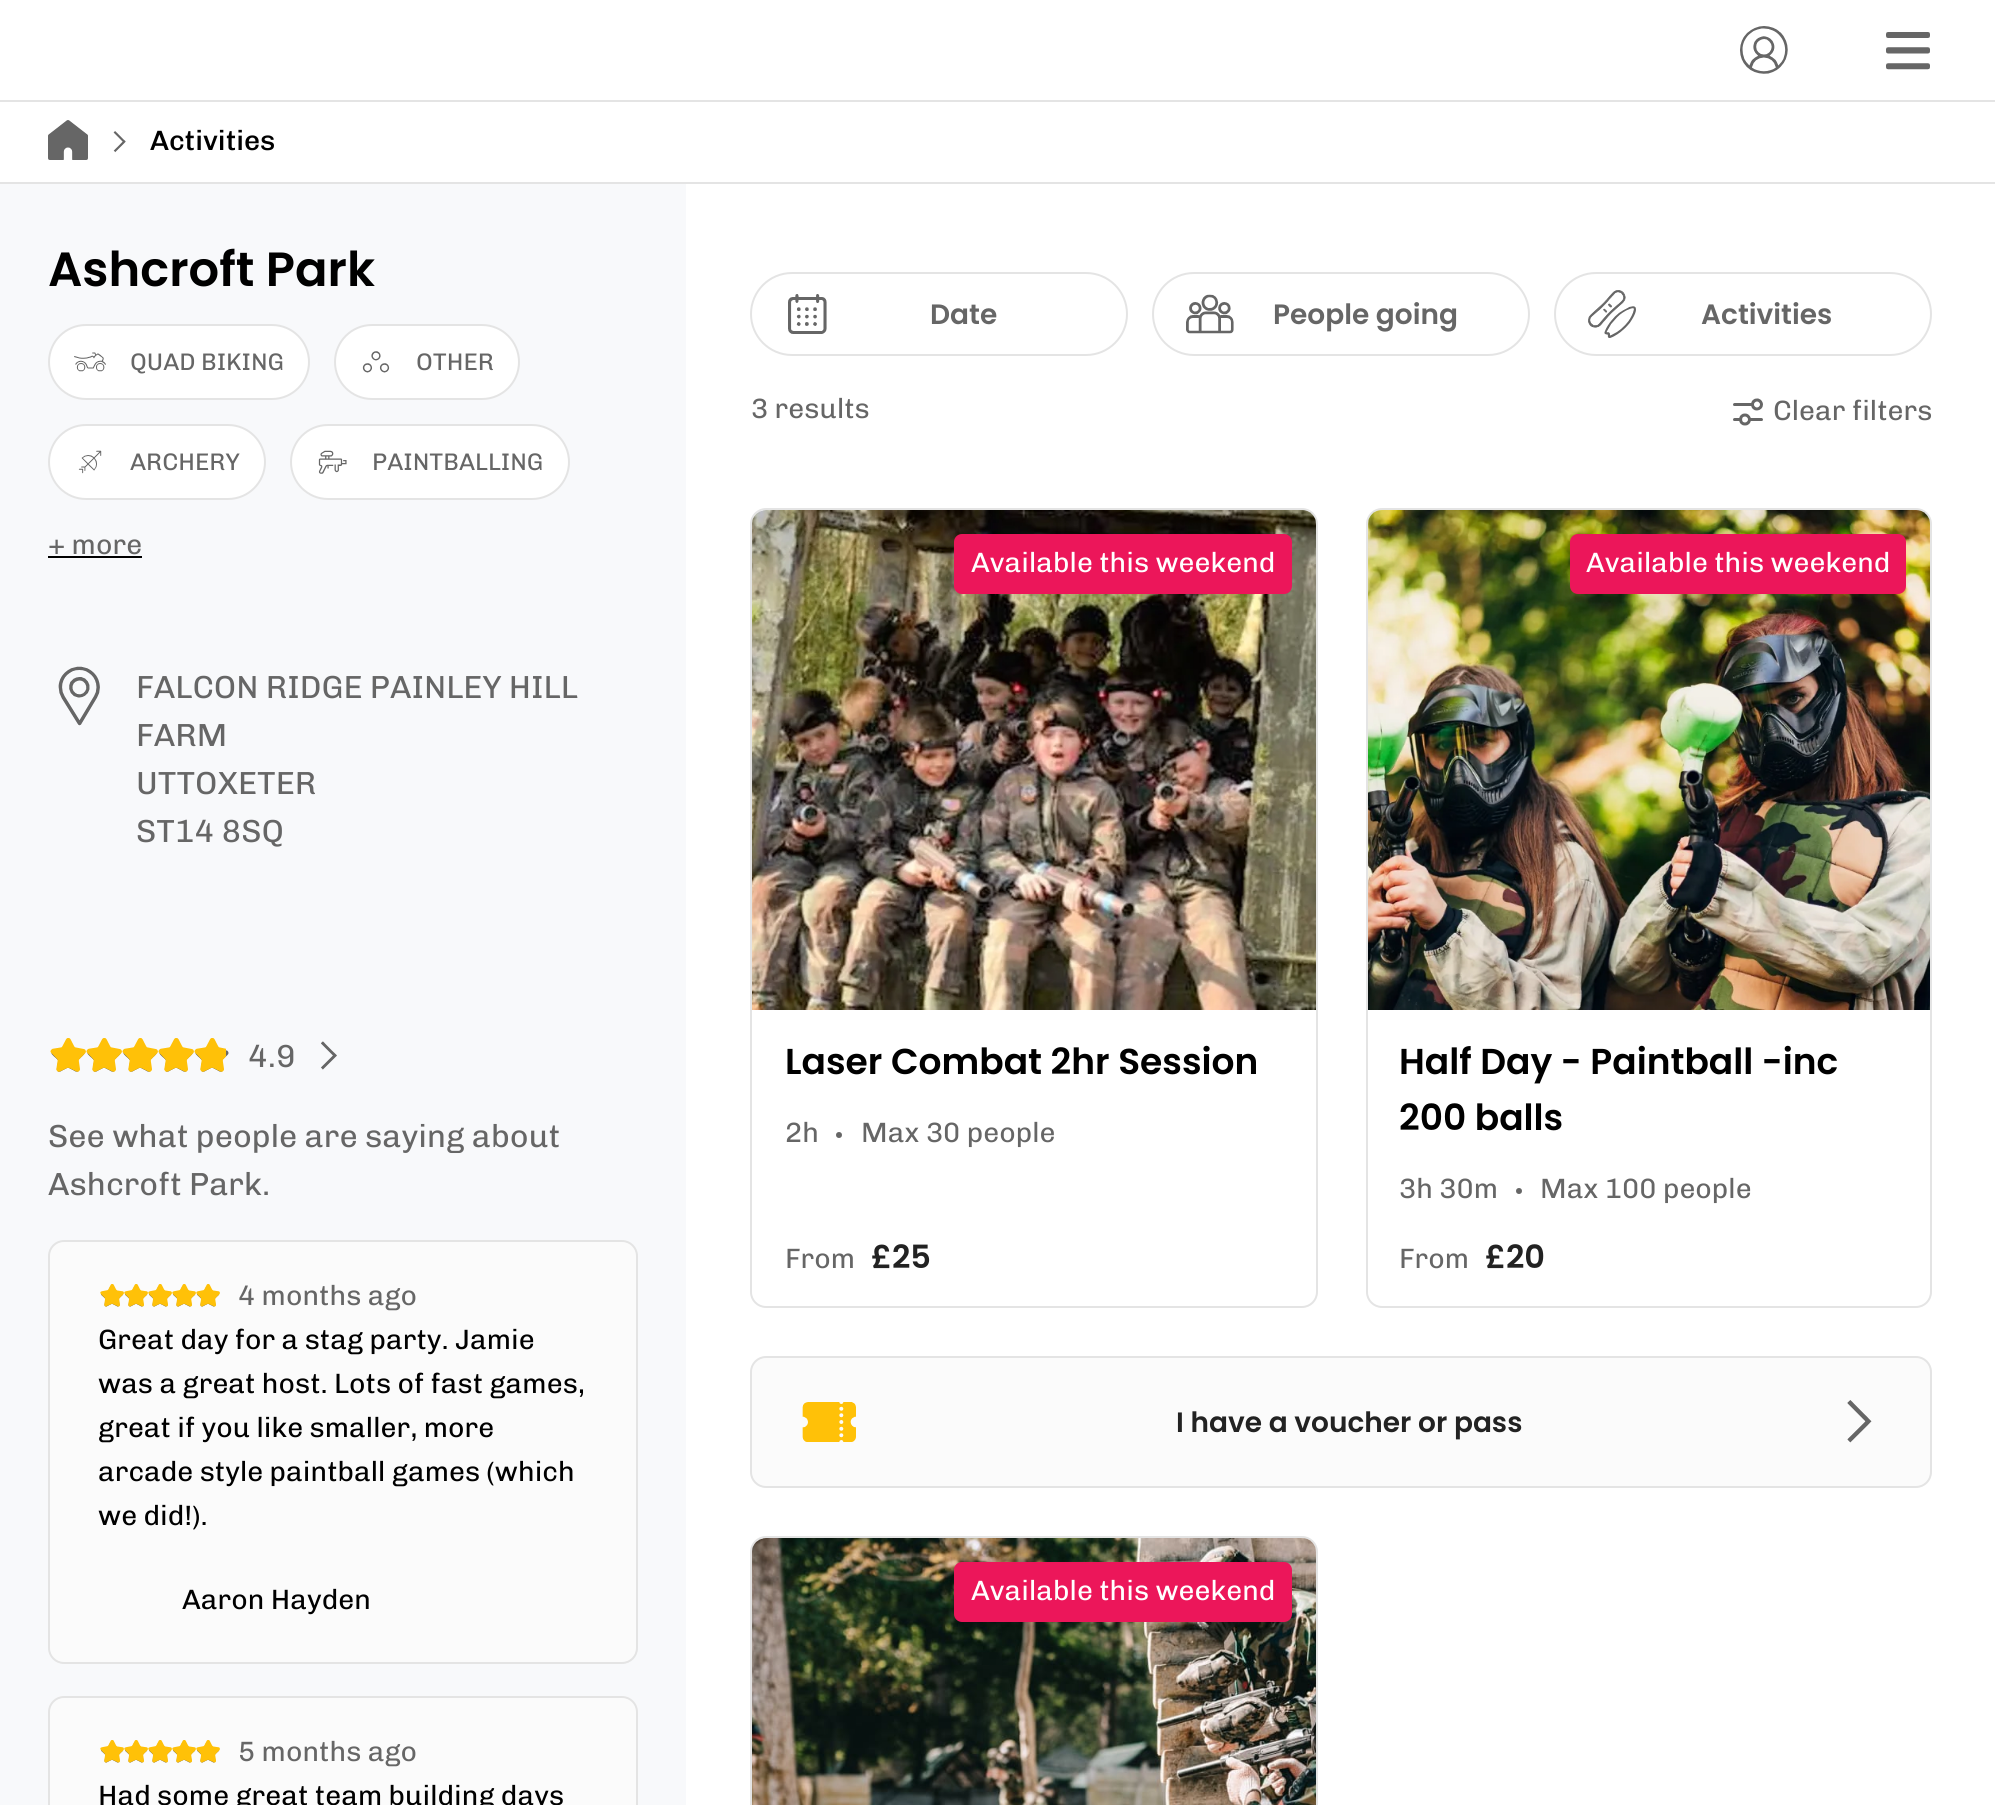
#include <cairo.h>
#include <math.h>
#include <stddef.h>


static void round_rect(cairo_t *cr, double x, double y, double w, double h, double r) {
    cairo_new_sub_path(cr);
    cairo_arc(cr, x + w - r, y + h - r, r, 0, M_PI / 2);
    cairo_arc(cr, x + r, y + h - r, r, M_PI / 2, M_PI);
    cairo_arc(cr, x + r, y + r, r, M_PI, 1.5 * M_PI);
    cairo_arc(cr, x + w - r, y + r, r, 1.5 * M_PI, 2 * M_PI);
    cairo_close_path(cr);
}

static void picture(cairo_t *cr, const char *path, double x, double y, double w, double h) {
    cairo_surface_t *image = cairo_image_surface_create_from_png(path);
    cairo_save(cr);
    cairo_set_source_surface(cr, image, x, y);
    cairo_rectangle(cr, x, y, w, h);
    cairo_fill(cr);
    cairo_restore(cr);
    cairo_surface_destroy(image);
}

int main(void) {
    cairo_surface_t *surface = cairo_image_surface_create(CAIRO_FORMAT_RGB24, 1995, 1805);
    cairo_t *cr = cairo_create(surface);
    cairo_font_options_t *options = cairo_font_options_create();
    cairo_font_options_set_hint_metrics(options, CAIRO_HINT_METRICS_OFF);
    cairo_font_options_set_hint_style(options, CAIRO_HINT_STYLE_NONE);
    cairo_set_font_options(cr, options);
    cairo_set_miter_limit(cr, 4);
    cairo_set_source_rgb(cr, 1, 1, 1);
    cairo_paint(cr);
    cairo_set_source_rgb(cr, 0.894, 0.894, 0.894);
    cairo_rectangle(cr, 0, 100, 1995, 2);
    cairo_fill(cr);
    picture(cr, "img1.png", 1740, 26, 48, 48);
    picture(cr, "img2.png", 1886, 32, 44, 38);
    cairo_rectangle(cr, 0, 182, 1995, 2);
    cairo_fill(cr);
    picture(cr, "img3.png", 48, 120, 40, 40);
    picture(cr, "img4.png", 113, 131, 13, 22);
    cairo_select_font_face(cr, "Chivo Medium", CAIRO_FONT_SLANT_NORMAL, CAIRO_FONT_WEIGHT_NORMAL);
    cairo_set_font_size(cr, 28);
    cairo_set_source_rgb(cr, 0, 0, 0);
    cairo_move_to(cr, 150, 150);
    cairo_show_text(cr, "Activities");
    cairo_set_source_rgb(cr, 0.969, 0.973, 0.984);
    cairo_rectangle(cr, 0, 184, 686, 1621);
    cairo_fill(cr);
    cairo_select_font_face(cr, "Poppins SemiBold", CAIRO_FONT_SLANT_NORMAL, CAIRO_FONT_WEIGHT_NORMAL);
    cairo_set_font_size(cr, 48);
    cairo_set_source_rgb(cr, 0, 0, 0);
    cairo_move_to(cr, 48, 286);
    cairo_show_text(cr, "Ashcroft Park");
    cairo_set_source_rgb(cr, 1, 1, 1);
    round_rect(cr, 49, 325, 260, 74, 37);
    cairo_fill_preserve(cr);
    cairo_set_source_rgb(cr, 0.894, 0.894, 0.894);
    cairo_stroke(cr);
    picture(cr, "img5.png", 74, 352, 32, 20);
    cairo_select_font_face(cr, "Chivo", CAIRO_FONT_SLANT_NORMAL, CAIRO_FONT_WEIGHT_NORMAL);
    cairo_set_font_size(cr, 24);
    cairo_set_source_rgb(cr, 0.4, 0.4, 0.4);
    cairo_move_to(cr, 130, 370);
    cairo_show_text(cr, "QUAD BIKING");
    cairo_set_source_rgb(cr, 1, 1, 1);
    round_rect(cr, 335, 325, 184, 74, 37);
    cairo_fill_preserve(cr);
    cairo_set_source_rgb(cr, 0.894, 0.894, 0.894);
    cairo_stroke(cr);
    picture(cr, "img6.png", 362, 351, 28, 22);
    cairo_set_source_rgb(cr, 0.4, 0.4, 0.4);
    cairo_move_to(cr, 416, 370);
    cairo_show_text(cr, "OTHER");
    cairo_set_source_rgb(cr, 1, 1, 1);
    round_rect(cr, 49, 425, 216, 74, 37);
    cairo_fill_preserve(cr);
    cairo_set_source_rgb(cr, 0.894, 0.894, 0.894);
    cairo_stroke(cr);
    picture(cr, "img7.png", 78, 450, 24, 24);
    cairo_set_source_rgb(cr, 0.4, 0.4, 0.4);
    cairo_move_to(cr, 130, 470);
    cairo_show_text(cr, "ARCHERY");
    cairo_set_source_rgb(cr, 1, 1, 1);
    round_rect(cr, 291, 425, 278, 74, 37);
    cairo_fill_preserve(cr);
    cairo_set_source_rgb(cr, 0.894, 0.894, 0.894);
    cairo_stroke(cr);
    picture(cr, "img8.png", 318, 450, 29, 24);
    cairo_set_source_rgb(cr, 0.4, 0.4, 0.4);
    cairo_move_to(cr, 372, 470);
    cairo_show_text(cr, "PAINTBALLING");
    cairo_set_font_size(cr, 28);
    cairo_move_to(cr, 48, 554);
    cairo_show_text(cr, "+ more");
    cairo_set_source_rgb(cr, 0, 0, 0);
    cairo_rectangle(cr, 48, 556, 94, 2);
    cairo_fill(cr);
    picture(cr, "img9.png", 58, 666, 42, 60);
    cairo_set_font_size(cr, 32);
    cairo_set_source_rgb(cr, 0.4, 0.4, 0.4);
    cairo_move_to(cr, 136, 698);
    cairo_show_text(cr, "FALCON RIDGE PAINLEY HILL");
    cairo_move_to(cr, 136, 746);
    cairo_show_text(cr, "FARM");
    cairo_move_to(cr, 136, 794);
    cairo_show_text(cr, "UTTOXETER");
    cairo_move_to(cr, 136, 842);
    cairo_show_text(cr, "ST14 8SQ");
    picture(cr, "img15.png", 51, 1041, 34, 31);
    picture(cr, "img10.png", 50, 1038, 36, 34);
    picture(cr, "img16.png", 87, 1041, 34, 31);
    picture(cr, "img11.png", 86, 1038, 36, 34);
    picture(cr, "img17.png", 123, 1041, 34, 31);
    picture(cr, "img12.png", 122, 1038, 36, 34);
    picture(cr, "img18.png", 159, 1041, 34, 31);
    picture(cr, "img13.png", 158, 1038, 36, 34);
    picture(cr, "img18.png", 195, 1041, 34, 31);
    picture(cr, "img14.png", 194, 1038, 32, 34);
    cairo_move_to(cr, 248, 1067);
    cairo_show_text(cr, "4.9");
    picture(cr, "img19.png", 321, 1041, 16, 29);
    cairo_move_to(cr, 48, 1147);
    cairo_show_text(cr, "See what people are saying about");
    cairo_move_to(cr, 48, 1195);
    cairo_show_text(cr, "Ashcroft Park.");
    cairo_set_source_rgb(cr, 0.984, 0.984, 0.984);
    round_rect(cr, 49, 1241, 588, 422, 15);
    cairo_fill_preserve(cr);
    cairo_set_source_rgb(cr, 0.894, 0.894, 0.894);
    cairo_stroke(cr);
    picture(cr, "img21.png", 101, 1287, 22, 20);
    picture(cr, "img20.png", 100, 1284, 24, 23);
    picture(cr, "img21.png", 125, 1287, 22, 20);
    picture(cr, "img20.png", 124, 1284, 24, 23);
    picture(cr, "img21.png", 149, 1287, 22, 20);
    picture(cr, "img20.png", 148, 1284, 24, 23);
    picture(cr, "img21.png", 173, 1287, 22, 20);
    picture(cr, "img20.png", 172, 1284, 24, 23);
    picture(cr, "img21.png", 197, 1287, 22, 20);
    picture(cr, "img20.png", 196, 1284, 24, 23);
    cairo_set_font_size(cr, 28);
    cairo_set_source_rgb(cr, 0.4, 0.4, 0.4);
    cairo_move_to(cr, 238, 1305);
    cairo_show_text(cr, "4 months ago");
    cairo_set_source_rgb(cr, 0, 0, 0);
    cairo_move_to(cr, 98, 1349);
    cairo_show_text(cr, "Great day for a stag party. Jamie");
    cairo_move_to(cr, 98, 1393);
    cairo_show_text(cr, "was a great host. Lots of fast games,");
    cairo_move_to(cr, 98, 1437);
    cairo_show_text(cr, "great if you like smaller, more");
    cairo_move_to(cr, 98, 1481);
    cairo_show_text(cr, "arcade style paintball games (which");
    cairo_move_to(cr, 98, 1525);
    cairo_show_text(cr, "we did!).");
    cairo_move_to(cr, 182, 1609);
    cairo_show_text(cr, "Aaron Hayden");
    cairo_set_source_rgb(cr, 0.984, 0.984, 0.984);
    cairo_new_path(cr);
    cairo_move_to(cr, 64, 1696);
    cairo_line_to(cr, 622, 1696);
    cairo_curve_to(cr, 631, 1696, 638, 1703, 638, 1712);
    cairo_line_to(cr, 638, 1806);
    cairo_line_to(cr, 48, 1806);
    cairo_line_to(cr, 48, 1712);
    cairo_curve_to(cr, 48, 1703, 55, 1696, 64, 1696);
    cairo_close_path(cr);
    cairo_fill(cr);
    round_rect(cr, 49, 1697, 588, 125, 15);
    cairo_set_source_rgb(cr, 0.894, 0.894, 0.894);
    cairo_stroke(cr);
    picture(cr, "img21.png", 101, 1743, 22, 20);
    picture(cr, "img20.png", 100, 1740, 24, 23);
    picture(cr, "img21.png", 125, 1743, 22, 20);
    picture(cr, "img20.png", 124, 1740, 24, 23);
    picture(cr, "img21.png", 149, 1743, 22, 20);
    picture(cr, "img20.png", 148, 1740, 24, 23);
    picture(cr, "img21.png", 173, 1743, 22, 20);
    picture(cr, "img20.png", 172, 1740, 24, 23);
    picture(cr, "img21.png", 197, 1743, 22, 20);
    picture(cr, "img20.png", 196, 1740, 24, 23);
    cairo_set_source_rgb(cr, 0.4, 0.4, 0.4);
    cairo_move_to(cr, 238, 1761);
    cairo_show_text(cr, "5 months ago");
    cairo_set_source_rgb(cr, 0, 0, 0);
    cairo_move_to(cr, 98, 1805);
    cairo_show_text(cr, "Had some great team building days");
    round_rect(cr, 751, 273, 376, 82, 41);
    cairo_set_source_rgb(cr, 0.894, 0.894, 0.894);
    cairo_stroke(cr);
    picture(cr, "img22.png", 788, 294, 39, 40);
    cairo_select_font_face(cr, "Poppins SemiBold", CAIRO_FONT_SLANT_NORMAL, CAIRO_FONT_WEIGHT_NORMAL);
    cairo_set_source_rgb(cr, 0.4, 0.4, 0.4);
    cairo_move_to(cr, 930, 324);
    cairo_show_text(cr, "Date");
    round_rect(cr, 1153, 273, 376, 82, 41);
    cairo_set_source_rgb(cr, 0.894, 0.894, 0.894);
    cairo_stroke(cr);
    picture(cr, "img23.png", 1186, 294, 48, 40);
    cairo_set_source_rgb(cr, 0.4, 0.4, 0.4);
    cairo_move_to(cr, 1273, 324);
    cairo_show_text(cr, "People going");
    round_rect(cr, 1555, 273, 376, 82, 41);
    cairo_set_source_rgb(cr, 0.894, 0.894, 0.894);
    cairo_stroke(cr);
    picture(cr, "img24.png", 1588, 290, 48, 48);
    cairo_set_source_rgb(cr, 0.4, 0.4, 0.4);
    cairo_move_to(cr, 1701, 324);
    cairo_show_text(cr, "Activities");
    cairo_select_font_face(cr, "Chivo", CAIRO_FONT_SLANT_NORMAL, CAIRO_FONT_WEIGHT_NORMAL);
    cairo_move_to(cr, 751, 418);
    cairo_show_text(cr, "3 results");
    picture(cr, "img25.png", 1733, 398, 30, 28);
    cairo_move_to(cr, 1773, 420);
    cairo_show_text(cr, "Clear filters");
    round_rect(cr, 751, 509, 566, 798, 15);
    cairo_set_source_rgb(cr, 0.894, 0.894, 0.894);
    cairo_stroke(cr);
    picture(cr, "img26.png", 752, 510, 564, 500);
    cairo_set_source_rgb(cr, 0.925, 0.086, 0.353);
    round_rect(cr, 954, 534, 338, 60, 8);
    cairo_fill(cr);
    cairo_set_source_rgb(cr, 1, 1, 1);
    cairo_move_to(cr, 971, 572);
    cairo_show_text(cr, "Available this weekend");
    cairo_select_font_face(cr, "Poppins SemiBold", CAIRO_FONT_SLANT_NORMAL, CAIRO_FONT_WEIGHT_NORMAL);
    cairo_set_font_size(cr, 36);
    cairo_set_source_rgb(cr, 0, 0, 0);
    cairo_move_to(cr, 785, 1074);
    cairo_show_text(cr, "Laser Combat 2hr Session");
    cairo_select_font_face(cr, "Chivo", CAIRO_FONT_SLANT_NORMAL, CAIRO_FONT_WEIGHT_NORMAL);
    cairo_set_font_size(cr, 28);
    cairo_set_source_rgb(cr, 0.4, 0.4, 0.4);
    cairo_move_to(cr, 785, 1142);
    cairo_show_text(cr, "2h");
    cairo_new_path(cr);
    cairo_arc(cr, 839, 1135, 3, 0, 2 * M_PI);
    cairo_fill(cr);
    cairo_move_to(cr, 861, 1142);
    cairo_show_text(cr, "Max 30 people");
    cairo_move_to(cr, 785, 1268);
    cairo_show_text(cr, "From");
    cairo_select_font_face(cr, "Poppins SemiBold", CAIRO_FONT_SLANT_NORMAL, CAIRO_FONT_WEIGHT_NORMAL);
    cairo_set_font_size(cr, 32);
    cairo_set_source_rgb(cr, 0.133, 0.133, 0.133);
    cairo_move_to(cr, 871, 1268);
    cairo_show_text(cr, "£25");
    round_rect(cr, 1367, 509, 564, 798, 15);
    cairo_set_source_rgb(cr, 0.894, 0.894, 0.894);
    cairo_stroke(cr);
    picture(cr, "img27.png", 1368, 510, 562, 500);
    cairo_set_source_rgb(cr, 0.925, 0.086, 0.353);
    round_rect(cr, 1570, 534, 336, 60, 8);
    cairo_fill(cr);
    cairo_select_font_face(cr, "Chivo", CAIRO_FONT_SLANT_NORMAL, CAIRO_FONT_WEIGHT_NORMAL);
    cairo_set_font_size(cr, 28);
    cairo_set_source_rgb(cr, 1, 1, 1);
    cairo_move_to(cr, 1586, 572);
    cairo_show_text(cr, "Available this weekend");
    cairo_select_font_face(cr, "Poppins SemiBold", CAIRO_FONT_SLANT_NORMAL, CAIRO_FONT_WEIGHT_NORMAL);
    cairo_set_font_size(cr, 36);
    cairo_set_source_rgb(cr, 0, 0, 0);
    cairo_move_to(cr, 1399, 1074);
    cairo_show_text(cr, "Half Day - Paintball -inc");
    cairo_move_to(cr, 1399, 1130);
    cairo_show_text(cr, "200 balls");
    cairo_select_font_face(cr, "Chivo", CAIRO_FONT_SLANT_NORMAL, CAIRO_FONT_WEIGHT_NORMAL);
    cairo_set_font_size(cr, 28);
    cairo_set_source_rgb(cr, 0.4, 0.4, 0.4);
    cairo_move_to(cr, 1399, 1198);
    cairo_show_text(cr, "3h 30m");
    cairo_new_path(cr);
    cairo_arc(cr, 1519, 1191, 3, 0, 2 * M_PI);
    cairo_fill(cr);
    cairo_move_to(cr, 1540, 1198);
    cairo_show_text(cr, "Max 100 people");
    cairo_move_to(cr, 1399, 1268);
    cairo_show_text(cr, "From");
    cairo_select_font_face(cr, "Poppins SemiBold", CAIRO_FONT_SLANT_NORMAL, CAIRO_FONT_WEIGHT_NORMAL);
    cairo_set_font_size(cr, 32);
    cairo_set_source_rgb(cr, 0.133, 0.133, 0.133);
    cairo_move_to(cr, 1485, 1268);
    cairo_show_text(cr, "£20");
    cairo_set_source_rgb(cr, 0.984, 0.984, 0.984);
    round_rect(cr, 751, 1357, 1180, 130, 15);
    cairo_fill_preserve(cr);
    cairo_set_source_rgb(cr, 0.894, 0.894, 0.894);
    cairo_stroke(cr);
    picture(cr, "img28.png", 802, 1402, 54, 40);
    cairo_set_font_size(cr, 28);
    cairo_set_source_rgb(cr, 0.133, 0.133, 0.133);
    cairo_move_to(cr, 1176, 1432);
    cairo_show_text(cr, "I have a voucher or pass");
    picture(cr, "img29.png", 1847, 1400, 25, 43);
    round_rect(cr, 751, 1537, 566, 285, 15);
    cairo_set_source_rgb(cr, 0.894, 0.894, 0.894);
    cairo_stroke(cr);
    picture(cr, "img30.png", 752, 1538, 564, 267);
    cairo_set_source_rgb(cr, 0.925, 0.086, 0.353);
    round_rect(cr, 954, 1562, 338, 60, 8);
    cairo_fill(cr);
    cairo_select_font_face(cr, "Chivo", CAIRO_FONT_SLANT_NORMAL, CAIRO_FONT_WEIGHT_NORMAL);
    cairo_set_source_rgb(cr, 1, 1, 1);
    cairo_move_to(cr, 971, 1600);
    cairo_show_text(cr, "Available this weekend");
    cairo_surface_write_to_png(surface, "page.png");
    cairo_font_options_destroy(options);
    cairo_destroy(cr);
    cairo_surface_destroy(surface);
    return 0;
}
